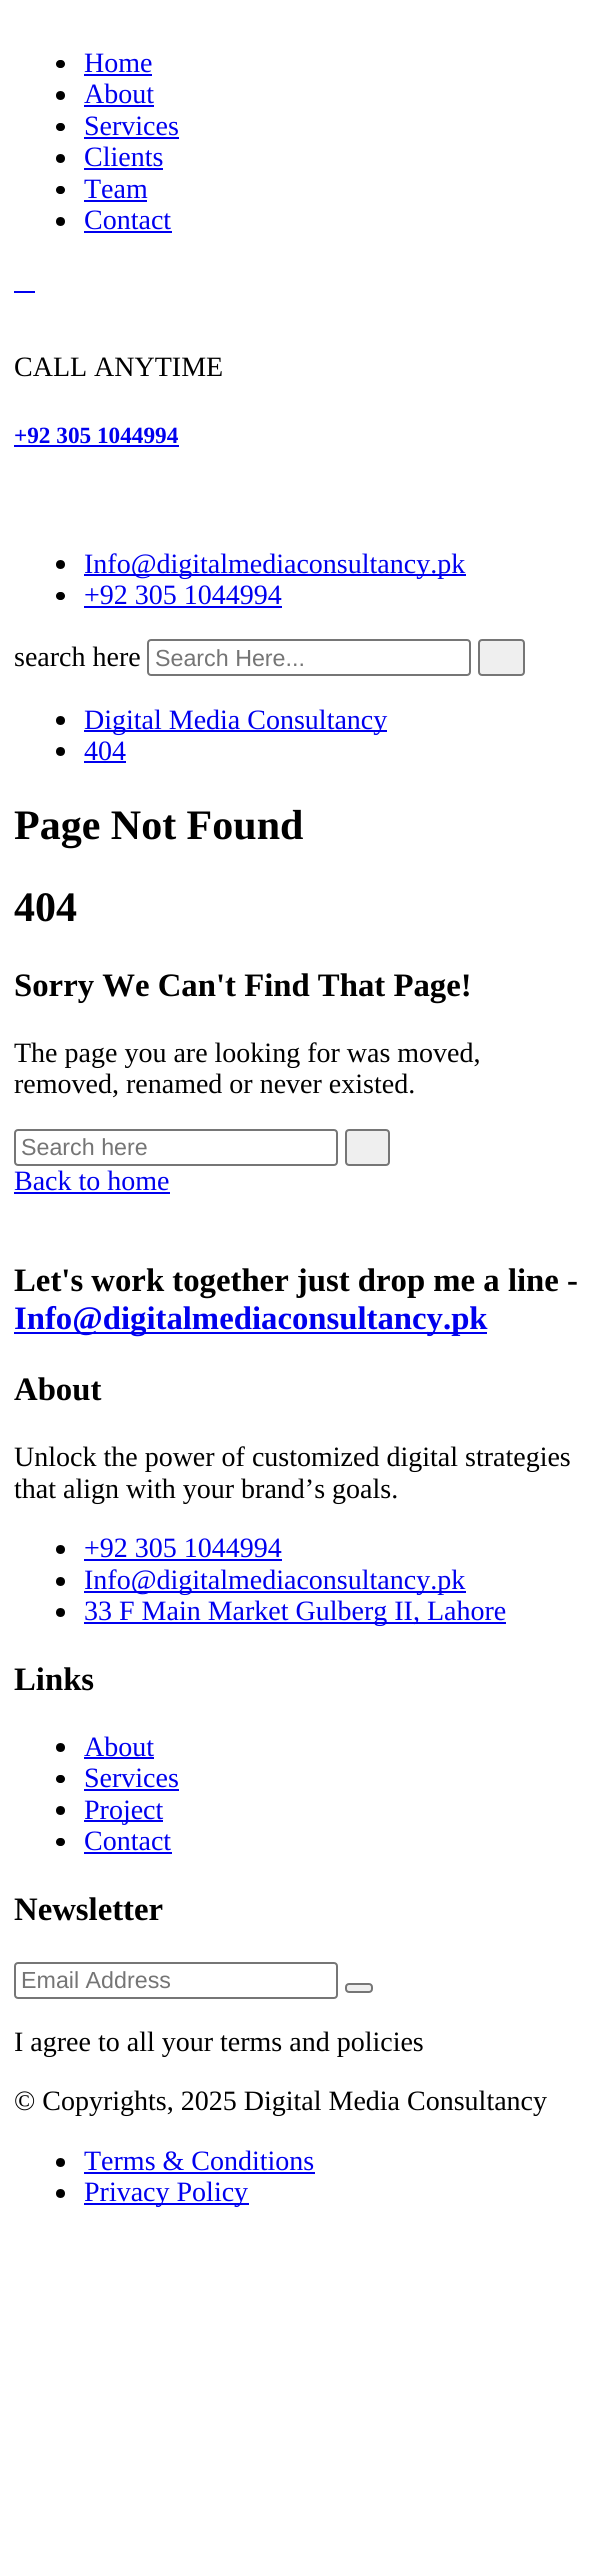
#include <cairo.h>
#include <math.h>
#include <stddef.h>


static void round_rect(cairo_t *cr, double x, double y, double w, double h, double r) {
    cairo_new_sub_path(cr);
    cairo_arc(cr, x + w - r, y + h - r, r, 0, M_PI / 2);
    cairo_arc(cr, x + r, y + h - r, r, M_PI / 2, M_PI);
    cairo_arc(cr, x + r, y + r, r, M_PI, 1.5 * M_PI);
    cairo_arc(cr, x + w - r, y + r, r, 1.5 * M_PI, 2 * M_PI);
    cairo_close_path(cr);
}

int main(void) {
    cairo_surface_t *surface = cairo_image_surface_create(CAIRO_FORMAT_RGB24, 594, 2550);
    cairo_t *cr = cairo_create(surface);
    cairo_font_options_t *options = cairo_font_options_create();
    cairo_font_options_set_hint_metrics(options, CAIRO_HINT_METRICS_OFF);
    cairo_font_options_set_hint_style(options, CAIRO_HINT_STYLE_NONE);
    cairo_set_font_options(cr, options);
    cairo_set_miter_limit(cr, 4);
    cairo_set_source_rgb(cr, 1, 1, 1);
    cairo_paint(cr);
    cairo_set_source_rgb(cr, 0, 0, 0);
    round_rect(cr, 56, 60, 9, 8, 4);
    cairo_fill(cr);
    cairo_select_font_face(cr, "Liberation Serif", CAIRO_FONT_SLANT_NORMAL, CAIRO_FONT_WEIGHT_NORMAL);
    cairo_set_font_size(cr, 28);
    cairo_set_source_rgb(cr, 0, 0, 0.933);
    cairo_move_to(cr, 84, 72);
    cairo_show_text(cr, "Home");
    cairo_rectangle(cr, 84, 74, 68, 2);
    cairo_fill(cr);
    cairo_set_source_rgb(cr, 0, 0, 0);
    cairo_arc(cr, 60.5, 95.5, 4.5, 0, 2 * M_PI);
    cairo_fill(cr);
    cairo_set_source_rgb(cr, 0, 0, 0.933);
    cairo_move_to(cr, 84, 103);
    cairo_show_text(cr, "About");
    cairo_rectangle(cr, 84, 105, 70, 2);
    cairo_fill(cr);
    cairo_set_source_rgb(cr, 0, 0, 0);
    round_rect(cr, 56, 123, 9, 8, 4);
    cairo_fill(cr);
    cairo_set_source_rgb(cr, 0, 0, 0.933);
    cairo_move_to(cr, 84, 135);
    cairo_show_text(cr, "Services");
    cairo_rectangle(cr, 84, 137, 95, 2);
    cairo_fill(cr);
    cairo_set_source_rgb(cr, 0, 0, 0);
    cairo_arc(cr, 60.5, 158.5, 4.5, 0, 2 * M_PI);
    cairo_fill(cr);
    cairo_set_source_rgb(cr, 0, 0, 0.933);
    cairo_move_to(cr, 84, 166);
    cairo_show_text(cr, "Clients");
    cairo_rectangle(cr, 84, 168, 79, 2);
    cairo_fill(cr);
    cairo_set_source_rgb(cr, 0, 0, 0);
    round_rect(cr, 56, 186, 9, 8, 4);
    cairo_fill(cr);
    cairo_set_source_rgb(cr, 0, 0, 0.933);
    cairo_move_to(cr, 84, 198);
    cairo_show_text(cr, "Team");
    cairo_rectangle(cr, 84, 200, 63, 2);
    cairo_fill(cr);
    cairo_set_source_rgb(cr, 0, 0, 0);
    cairo_arc(cr, 60.5, 221.5, 4.5, 0, 2 * M_PI);
    cairo_fill(cr);
    cairo_set_source_rgb(cr, 0, 0, 0.933);
    cairo_move_to(cr, 84, 229);
    cairo_show_text(cr, "Contact");
    cairo_rectangle(cr, 84, 231, 88, 2);
    cairo_fill(cr);
    cairo_rectangle(cr, 14, 291, 21, 2);
    cairo_fill(cr);
    cairo_set_source_rgb(cr, 0, 0, 0);
    cairo_move_to(cr, 14, 376);
    cairo_show_text(cr, "CALL ANYTIME");
    cairo_select_font_face(cr, "Liberation Serif", CAIRO_FONT_SLANT_NORMAL, CAIRO_FONT_WEIGHT_BOLD);
    cairo_set_font_size(cr, 23.25);
    cairo_set_source_rgb(cr, 0, 0, 0.933);
    cairo_move_to(cr, 14, 443);
    cairo_show_text(cr, "+92 305 1044994");
    cairo_rectangle(cr, 14, 445, 165, 2);
    cairo_fill(cr);
    cairo_set_source_rgb(cr, 0, 0, 0);
    cairo_arc(cr, 60.5, 564.5, 4.5, 0, 2 * M_PI);
    cairo_fill(cr);
    cairo_set_source_rgb(cr, 0, 0, 0.933);
    cairo_rectangle(cr, 84, 574, 382, 2);
    cairo_fill(cr);
    cairo_select_font_face(cr, "Liberation Serif", CAIRO_FONT_SLANT_NORMAL, CAIRO_FONT_WEIGHT_NORMAL);
    cairo_set_font_size(cr, 28);
    cairo_move_to(cr, 84, 573);
    cairo_show_text(cr, "Info@digitalmediaconsultancy.pk");
    cairo_set_source_rgb(cr, 0, 0, 0);
    round_rect(cr, 56, 592, 9, 8, 4);
    cairo_fill(cr);
    cairo_set_source_rgb(cr, 0, 0, 0.933);
    cairo_move_to(cr, 84, 604);
    cairo_show_text(cr, "+92 305 1044994");
    cairo_rectangle(cr, 84, 606, 198, 2);
    cairo_fill(cr);
    cairo_set_source_rgb(cr, 0, 0, 0);
    cairo_move_to(cr, 14, 666);
    cairo_show_text(cr, "search here");
    round_rect(cr, 148, 640, 322, 35, 3);
    cairo_set_source_rgb(cr, 0.463, 0.463, 0.463);
    cairo_stroke(cr);
    cairo_select_font_face(cr, "Liberation Sans", CAIRO_FONT_SLANT_NORMAL, CAIRO_FONT_WEIGHT_NORMAL);
    cairo_set_font_size(cr, 23.25);
    cairo_set_source_rgb(cr, 0.459, 0.459, 0.459);
    cairo_move_to(cr, 155, 666);
    cairo_show_text(cr, "Search Here...");
    cairo_set_source_rgb(cr, 0.937, 0.937, 0.937);
    round_rect(cr, 479, 640, 45, 35, 3);
    cairo_fill_preserve(cr);
    cairo_set_source_rgb(cr, 0.463, 0.463, 0.463);
    cairo_stroke(cr);
    cairo_set_source_rgb(cr, 0, 0, 0);
    cairo_arc(cr, 60.5, 720.5, 4.5, 0, 2 * M_PI);
    cairo_fill(cr);
    cairo_set_source_rgb(cr, 0, 0, 0.933);
    cairo_rectangle(cr, 84, 730, 303, 2);
    cairo_fill(cr);
    cairo_select_font_face(cr, "Liberation Serif", CAIRO_FONT_SLANT_NORMAL, CAIRO_FONT_WEIGHT_NORMAL);
    cairo_set_font_size(cr, 28);
    cairo_move_to(cr, 84, 729);
    cairo_show_text(cr, "Digital Media Consultancy");
    cairo_set_source_rgb(cr, 0, 0, 0);
    cairo_new_path(cr);
    cairo_arc(cr, 60.5, 751.5, 4.5, 0, 2 * M_PI);
    cairo_fill(cr);
    cairo_set_source_rgb(cr, 0, 0, 0.933);
    cairo_move_to(cr, 84, 760);
    cairo_show_text(cr, "404");
    cairo_rectangle(cr, 84, 761, 42, 2);
    cairo_fill(cr);
    cairo_select_font_face(cr, "Liberation Serif", CAIRO_FONT_SLANT_NORMAL, CAIRO_FONT_WEIGHT_BOLD);
    cairo_set_font_size(cr, 42);
    cairo_set_source_rgb(cr, 0, 0, 0);
    cairo_move_to(cr, 14, 839);
    cairo_show_text(cr, "Page Not Found");
    cairo_move_to(cr, 14, 921);
    cairo_show_text(cr, "404");
    cairo_set_font_size(cr, 32.75);
    cairo_move_to(cr, 14, 996);
    cairo_show_text(cr, "Sorry We Can't Find That Page!");
    cairo_select_font_face(cr, "Liberation Serif", CAIRO_FONT_SLANT_NORMAL, CAIRO_FONT_WEIGHT_NORMAL);
    cairo_set_font_size(cr, 28);
    cairo_move_to(cr, 14, 1062);
    cairo_show_text(cr, "The page you are looking for was moved,");
    cairo_move_to(cr, 14, 1093);
    cairo_show_text(cr, "removed, renamed or never existed.");
    round_rect(cr, 15, 1130, 322, 35, 3);
    cairo_set_source_rgb(cr, 0.463, 0.463, 0.463);
    cairo_stroke(cr);
    cairo_select_font_face(cr, "Liberation Sans", CAIRO_FONT_SLANT_NORMAL, CAIRO_FONT_WEIGHT_NORMAL);
    cairo_set_font_size(cr, 23.25);
    cairo_set_source_rgb(cr, 0.459, 0.459, 0.459);
    cairo_move_to(cr, 21, 1155);
    cairo_show_text(cr, "Search here");
    cairo_set_source_rgb(cr, 0.937, 0.937, 0.937);
    round_rect(cr, 346, 1130, 43, 35, 3);
    cairo_fill_preserve(cr);
    cairo_set_source_rgb(cr, 0.463, 0.463, 0.463);
    cairo_stroke(cr);
    cairo_select_font_face(cr, "Liberation Serif", CAIRO_FONT_SLANT_NORMAL, CAIRO_FONT_WEIGHT_NORMAL);
    cairo_set_font_size(cr, 28);
    cairo_set_source_rgb(cr, 0, 0, 0.933);
    cairo_move_to(cr, 14, 1190);
    cairo_show_text(cr, "Back to home");
    cairo_rectangle(cr, 14, 1192, 156, 2);
    cairo_fill(cr);
    cairo_select_font_face(cr, "Liberation Serif", CAIRO_FONT_SLANT_NORMAL, CAIRO_FONT_WEIGHT_BOLD);
    cairo_set_font_size(cr, 32.75);
    cairo_set_source_rgb(cr, 0, 0, 0);
    cairo_move_to(cr, 14, 1291);
    cairo_show_text(cr, "Let's work together just drop me a line -");
    cairo_set_source_rgb(cr, 0, 0, 0.933);
    cairo_rectangle(cr, 14, 1332, 473, 2);
    cairo_fill(cr);
    cairo_move_to(cr, 14, 1329);
    cairo_show_text(cr, "Info@digitalmediaconsultancy.pk");
    cairo_set_source_rgb(cr, 0, 0, 0);
    cairo_move_to(cr, 14, 1400);
    cairo_show_text(cr, "About");
    cairo_select_font_face(cr, "Liberation Serif", CAIRO_FONT_SLANT_NORMAL, CAIRO_FONT_WEIGHT_NORMAL);
    cairo_set_font_size(cr, 28);
    cairo_move_to(cr, 14, 1466);
    cairo_show_text(cr, "Unlock the power of customized digital strategies");
    cairo_move_to(cr, 14, 1498);
    cairo_show_text(cr, "that align with your brand’s goals.");
    cairo_new_path(cr);
    cairo_arc(cr, 60.5, 1549.5, 4.5, 0, 2 * M_PI);
    cairo_fill(cr);
    cairo_set_source_rgb(cr, 0, 0, 0.933);
    cairo_move_to(cr, 84, 1557);
    cairo_show_text(cr, "+92 305 1044994");
    cairo_rectangle(cr, 84, 1559, 198, 2);
    cairo_fill(cr);
    cairo_set_source_rgb(cr, 0, 0, 0);
    cairo_arc(cr, 60.5, 1581.5, 4.5, 0, 2 * M_PI);
    cairo_fill(cr);
    cairo_set_source_rgb(cr, 0, 0, 0.933);
    cairo_rectangle(cr, 84, 1591, 382, 2);
    cairo_fill(cr);
    cairo_move_to(cr, 84, 1589);
    cairo_show_text(cr, "Info@digitalmediaconsultancy.pk");
    cairo_set_source_rgb(cr, 0, 0, 0);
    cairo_new_path(cr);
    cairo_arc(cr, 60.5, 1612.5, 4.5, 0, 2 * M_PI);
    cairo_fill(cr);
    cairo_set_source_rgb(cr, 0, 0, 0.933);
    cairo_rectangle(cr, 84, 1622, 422, 2);
    cairo_fill(cr);
    cairo_move_to(cr, 84, 1620);
    cairo_show_text(cr, "33 F Main Market Gulberg II, Lahore");
    cairo_select_font_face(cr, "Liberation Serif", CAIRO_FONT_SLANT_NORMAL, CAIRO_FONT_WEIGHT_BOLD);
    cairo_set_font_size(cr, 32.75);
    cairo_set_source_rgb(cr, 0, 0, 0);
    cairo_move_to(cr, 14, 1690);
    cairo_show_text(cr, "Links");
    cairo_new_path(cr);
    cairo_arc(cr, 60.5, 1747.5, 4.5, 0, 2 * M_PI);
    cairo_fill(cr);
    cairo_select_font_face(cr, "Liberation Serif", CAIRO_FONT_SLANT_NORMAL, CAIRO_FONT_WEIGHT_NORMAL);
    cairo_set_font_size(cr, 28);
    cairo_set_source_rgb(cr, 0, 0, 0.933);
    cairo_move_to(cr, 84, 1756);
    cairo_show_text(cr, "About");
    cairo_rectangle(cr, 84, 1757, 70, 2);
    cairo_fill(cr);
    cairo_set_source_rgb(cr, 0, 0, 0);
    round_rect(cr, 56, 1775, 9, 8, 4);
    cairo_fill(cr);
    cairo_set_source_rgb(cr, 0, 0, 0.933);
    cairo_move_to(cr, 84, 1787);
    cairo_show_text(cr, "Services");
    cairo_rectangle(cr, 84, 1789, 95, 2);
    cairo_fill(cr);
    cairo_set_source_rgb(cr, 0, 0, 0);
    cairo_arc(cr, 60.5, 1810.5, 4.5, 0, 2 * M_PI);
    cairo_fill(cr);
    cairo_set_source_rgb(cr, 0, 0, 0.933);
    cairo_rectangle(cr, 84, 1820, 79, 2);
    cairo_fill(cr);
    cairo_move_to(cr, 84, 1819);
    cairo_show_text(cr, "Project");
    cairo_set_source_rgb(cr, 0, 0, 0);
    round_rect(cr, 56, 1838, 9, 8, 4);
    cairo_fill(cr);
    cairo_set_source_rgb(cr, 0, 0, 0.933);
    cairo_move_to(cr, 84, 1850);
    cairo_show_text(cr, "Contact");
    cairo_rectangle(cr, 84, 1852, 88, 2);
    cairo_fill(cr);
    cairo_select_font_face(cr, "Liberation Serif", CAIRO_FONT_SLANT_NORMAL, CAIRO_FONT_WEIGHT_BOLD);
    cairo_set_font_size(cr, 32.75);
    cairo_set_source_rgb(cr, 0, 0, 0);
    cairo_move_to(cr, 14, 1920);
    cairo_show_text(cr, "Newsletter");
    round_rect(cr, 15, 1963, 322, 35, 3);
    cairo_set_source_rgb(cr, 0.463, 0.463, 0.463);
    cairo_stroke(cr);
    cairo_select_font_face(cr, "Liberation Sans", CAIRO_FONT_SLANT_NORMAL, CAIRO_FONT_WEIGHT_NORMAL);
    cairo_set_font_size(cr, 23.25);
    cairo_set_source_rgb(cr, 0.459, 0.459, 0.459);
    cairo_move_to(cr, 21, 1988);
    cairo_show_text(cr, "Email Address");
    cairo_set_source_rgb(cr, 0.937, 0.937, 0.937);
    round_rect(cr, 346, 1984, 26, 8, 3);
    cairo_fill_preserve(cr);
    cairo_set_source_rgb(cr, 0.463, 0.463, 0.463);
    cairo_stroke(cr);
    cairo_select_font_face(cr, "Liberation Serif", CAIRO_FONT_SLANT_NORMAL, CAIRO_FONT_WEIGHT_NORMAL);
    cairo_set_font_size(cr, 28);
    cairo_set_source_rgb(cr, 0, 0, 0);
    cairo_move_to(cr, 14, 2051);
    cairo_show_text(cr, "I agree to all your terms and policies");
    cairo_move_to(cr, 14, 2110);
    cairo_show_text(cr, "© Copyrights, 2025 Digital Media Consultancy");
    cairo_new_path(cr);
    cairo_arc(cr, 60.5, 2162.5, 4.5, 0, 2 * M_PI);
    cairo_fill(cr);
    cairo_set_source_rgb(cr, 0, 0, 0.933);
    cairo_move_to(cr, 84, 2170);
    cairo_show_text(cr, "Terms & Conditions");
    cairo_rectangle(cr, 84, 2172, 231, 2);
    cairo_fill(cr);
    cairo_set_source_rgb(cr, 0, 0, 0);
    cairo_arc(cr, 60.5, 2193.5, 4.5, 0, 2 * M_PI);
    cairo_fill(cr);
    cairo_set_source_rgb(cr, 0, 0, 0.933);
    cairo_rectangle(cr, 84, 2203, 165, 2);
    cairo_fill(cr);
    cairo_move_to(cr, 84, 2201);
    cairo_show_text(cr, "Privacy Policy");
    cairo_surface_write_to_png(surface, "page.png");
    cairo_font_options_destroy(options);
    cairo_destroy(cr);
    cairo_surface_destroy(surface);
    return 0;
}
